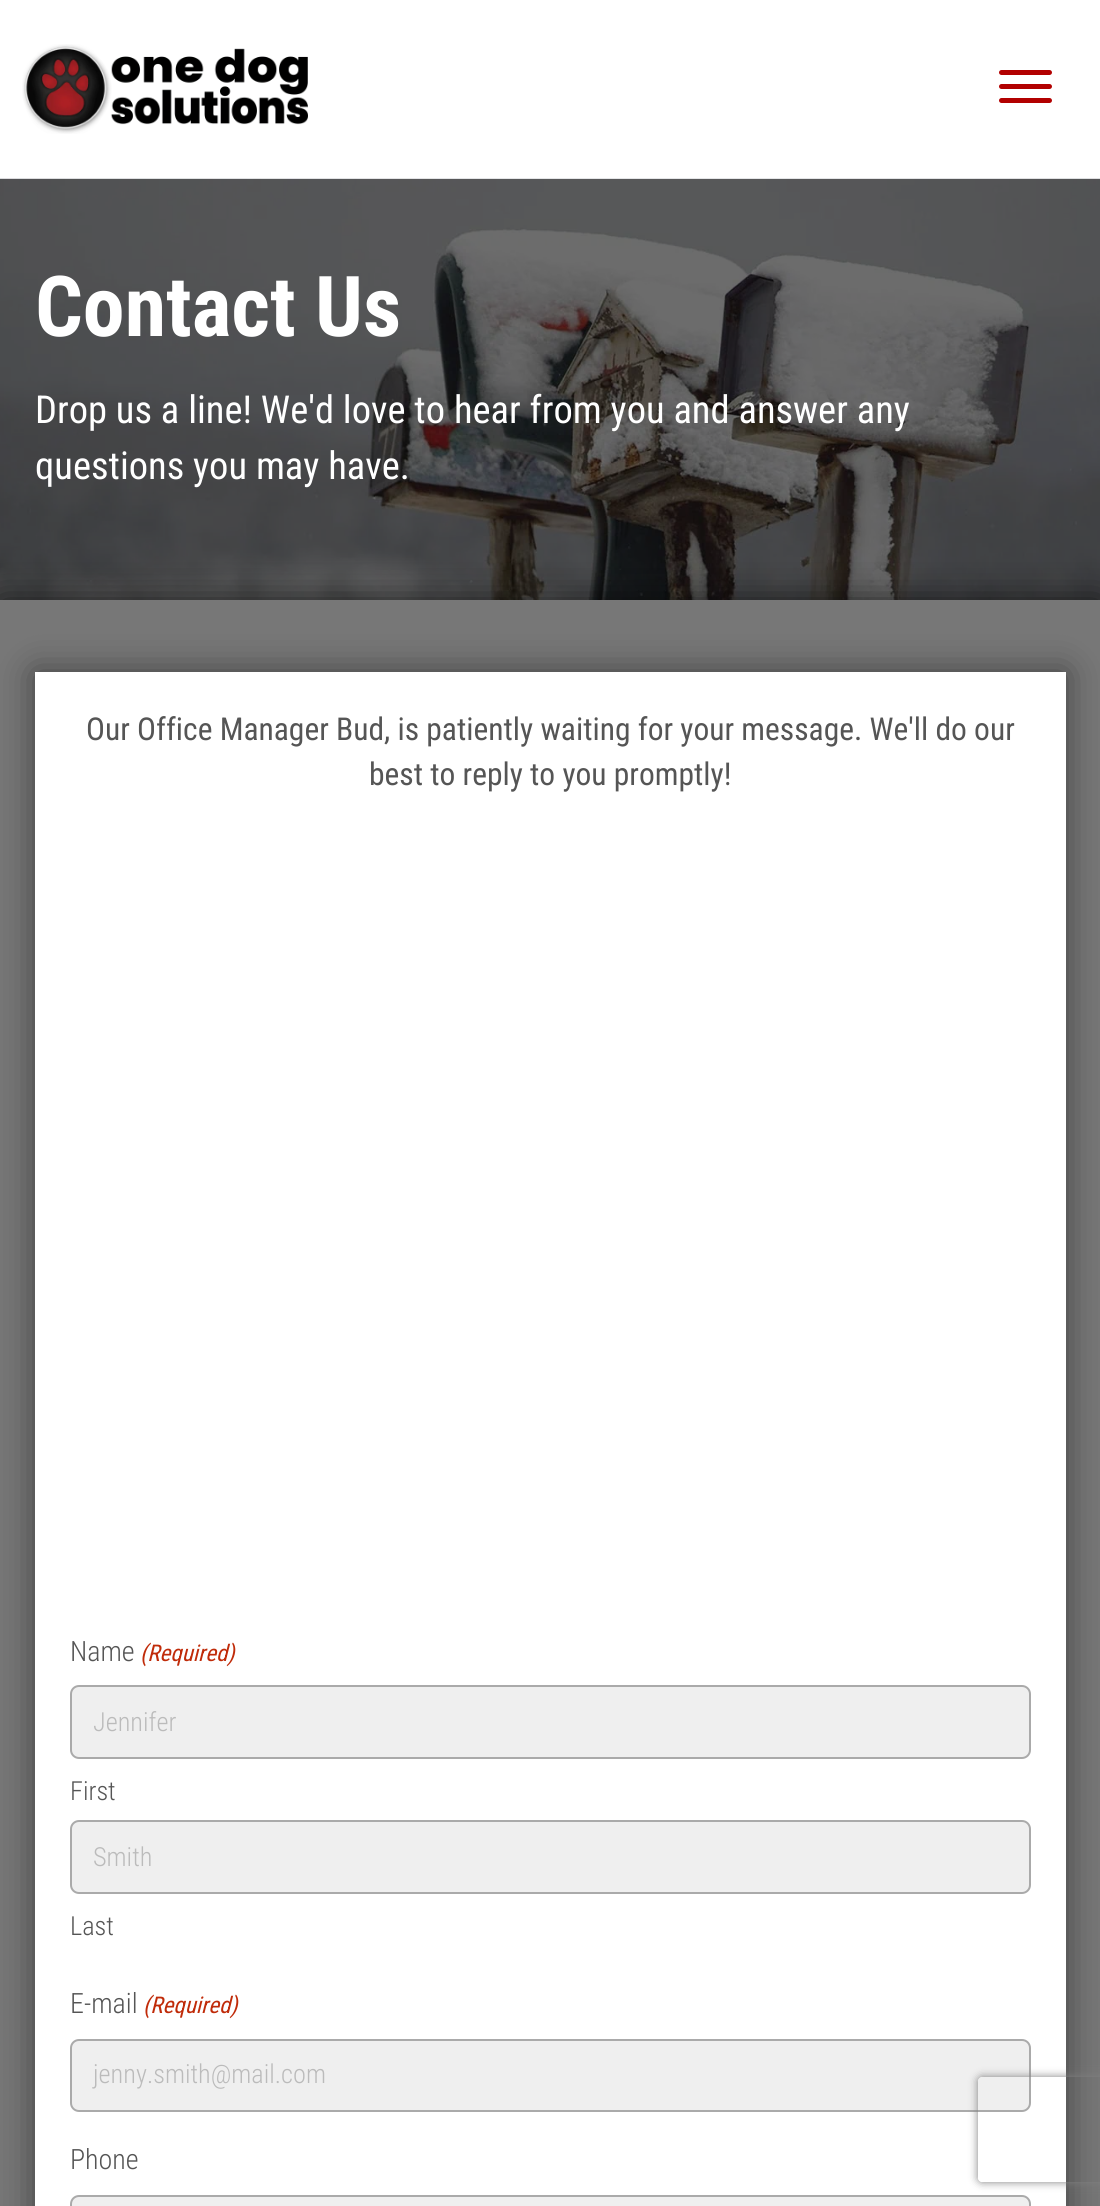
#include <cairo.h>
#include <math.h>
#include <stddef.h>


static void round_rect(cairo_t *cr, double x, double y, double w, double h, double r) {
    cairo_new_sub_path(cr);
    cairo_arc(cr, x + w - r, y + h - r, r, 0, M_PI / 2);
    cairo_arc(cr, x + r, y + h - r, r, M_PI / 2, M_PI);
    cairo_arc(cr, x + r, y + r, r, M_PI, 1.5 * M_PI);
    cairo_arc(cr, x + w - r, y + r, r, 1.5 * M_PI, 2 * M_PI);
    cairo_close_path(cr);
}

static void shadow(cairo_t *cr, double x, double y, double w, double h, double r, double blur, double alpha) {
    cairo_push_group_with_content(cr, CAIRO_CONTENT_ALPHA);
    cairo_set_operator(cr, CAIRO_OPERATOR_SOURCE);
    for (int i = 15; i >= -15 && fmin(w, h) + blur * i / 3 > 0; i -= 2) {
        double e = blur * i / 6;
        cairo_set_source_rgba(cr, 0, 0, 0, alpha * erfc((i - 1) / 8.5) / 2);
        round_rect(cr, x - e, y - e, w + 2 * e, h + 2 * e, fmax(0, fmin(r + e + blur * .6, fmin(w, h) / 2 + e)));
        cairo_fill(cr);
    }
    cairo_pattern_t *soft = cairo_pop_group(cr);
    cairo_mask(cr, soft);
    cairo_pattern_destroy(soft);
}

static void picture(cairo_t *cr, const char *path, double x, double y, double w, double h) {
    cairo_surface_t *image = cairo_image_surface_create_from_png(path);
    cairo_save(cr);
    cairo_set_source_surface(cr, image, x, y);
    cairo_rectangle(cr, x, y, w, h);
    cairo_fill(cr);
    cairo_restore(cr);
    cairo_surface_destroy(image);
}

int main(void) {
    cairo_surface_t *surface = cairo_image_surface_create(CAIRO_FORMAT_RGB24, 1100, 2206);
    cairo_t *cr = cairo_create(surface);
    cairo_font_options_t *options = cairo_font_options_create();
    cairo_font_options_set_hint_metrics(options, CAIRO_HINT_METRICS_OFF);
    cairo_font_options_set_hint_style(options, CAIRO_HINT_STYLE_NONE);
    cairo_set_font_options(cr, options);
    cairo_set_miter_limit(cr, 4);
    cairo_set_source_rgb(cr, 1, 1, 1);
    cairo_paint(cr);
    picture(cr, "img1.png", 22, 44, 286, 90);
    cairo_set_source_rgb(cr, 0.698, 0, 0);
    round_rect(cr, 999, 84, 53, 5, 2.5);
    cairo_fill(cr);
    round_rect(cr, 999, 70, 53, 5, 2.5);
    cairo_fill(cr);
    round_rect(cr, 999, 98, 53, 5, 2.5);
    cairo_fill(cr);
    picture(cr, "img2.png", 0, 178, 1100, 422);
    cairo_select_font_face(cr, "Roboto Condensed", CAIRO_FONT_SLANT_NORMAL, CAIRO_FONT_WEIGHT_BOLD);
    cairo_set_font_size(cr, 84);
    cairo_set_source_rgb(cr, 1, 1, 1);
    cairo_move_to(cr, 35, 336);
    cairo_show_text(cr, "Contact Us");
    cairo_select_font_face(cr, "Roboto Condensed", CAIRO_FONT_SLANT_NORMAL, CAIRO_FONT_WEIGHT_NORMAL);
    cairo_set_font_size(cr, 38.5);
    cairo_move_to(cr, 35, 423);
    cairo_show_text(cr, "Drop us a line! We'd love to hear from you and answer any");
    cairo_move_to(cr, 35, 479);
    cairo_show_text(cr, "questions you may have.");
    cairo_set_source_rgb(cr, 0.039, 0.039, 0.039);
    shadow(cr, 0, 600, 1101, 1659, 0, 17.5, 0.75);
    cairo_set_source_rgb(cr, 0.467, 0.467, 0.467);
    cairo_rectangle(cr, 0, 600, 1100, 1606);
    cairo_fill(cr);
    cairo_set_source_rgb(cr, 0.039, 0.039, 0.039);
    shadow(cr, 35, 672, 1031, 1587, 0, 17.5, 0.5);
    cairo_set_source_rgb(cr, 1, 1, 1);
    cairo_rectangle(cr, 35, 672, 1031, 1534);
    cairo_fill(cr);
    cairo_set_font_size(cr, 31.5);
    cairo_set_source_rgb(cr, 0.333, 0.333, 0.333);
    cairo_move_to(cr, 86, 740);
    cairo_show_text(cr, "Our Office Manager Bud, is patiently waiting for your message. We'll do our");
    cairo_move_to(cr, 369, 785);
    cairo_show_text(cr, "best to reply to you promptly!");
    cairo_select_font_face(cr, "Roboto Condensed Light", CAIRO_FONT_SLANT_NORMAL, CAIRO_FONT_WEIGHT_NORMAL);
    cairo_set_font_size(cr, 28);
    cairo_move_to(cr, 70, 1661);
    cairo_show_text(cr, "Name");
    cairo_select_font_face(cr, "Roboto Condensed", CAIRO_FONT_SLANT_ITALIC, CAIRO_FONT_WEIGHT_NORMAL);
    cairo_set_font_size(cr, 23);
    cairo_set_source_rgb(cr, 0.753, 0.169, 0.039);
    cairo_move_to(cr, 140, 1661);
    cairo_show_text(cr, "(Required)");
    cairo_set_source_rgb(cr, 0.937, 0.937, 0.937);
    round_rect(cr, 71, 1686, 959, 72, 8);
    cairo_fill_preserve(cr);
    cairo_set_source_rgb(cr, 0.667, 0.667, 0.667);
    cairo_stroke(cr);
    cairo_select_font_face(cr, "Roboto Condensed Light", CAIRO_FONT_SLANT_NORMAL, CAIRO_FONT_WEIGHT_NORMAL);
    cairo_set_font_size(cr, 26.25);
    cairo_set_source_rgb(cr, 0.733, 0.733, 0.733);
    cairo_move_to(cr, 93, 1731);
    cairo_show_text(cr, "Jennifer");
    cairo_set_source_rgb(cr, 0.333, 0.333, 0.333);
    cairo_move_to(cr, 70, 1800);
    cairo_show_text(cr, "First");
    cairo_set_source_rgb(cr, 0.937, 0.937, 0.937);
    round_rect(cr, 71, 1821, 959, 72, 8);
    cairo_fill_preserve(cr);
    cairo_set_source_rgb(cr, 0.667, 0.667, 0.667);
    cairo_stroke(cr);
    cairo_set_source_rgb(cr, 0.733, 0.733, 0.733);
    cairo_move_to(cr, 93, 1866);
    cairo_show_text(cr, "Smith");
    cairo_set_source_rgb(cr, 0.333, 0.333, 0.333);
    cairo_move_to(cr, 70, 1935);
    cairo_show_text(cr, "Last");
    cairo_set_font_size(cr, 28);
    cairo_move_to(cr, 70, 2013);
    cairo_show_text(cr, "E-mail");
    cairo_select_font_face(cr, "Roboto Condensed", CAIRO_FONT_SLANT_ITALIC, CAIRO_FONT_WEIGHT_NORMAL);
    cairo_set_font_size(cr, 23);
    cairo_set_source_rgb(cr, 0.753, 0.169, 0.039);
    cairo_move_to(cr, 143, 2013);
    cairo_show_text(cr, "(Required)");
    cairo_set_source_rgb(cr, 0.937, 0.937, 0.937);
    round_rect(cr, 71, 2040, 959, 71, 8);
    cairo_fill_preserve(cr);
    cairo_set_source_rgb(cr, 0.667, 0.667, 0.667);
    cairo_stroke(cr);
    cairo_select_font_face(cr, "Roboto Condensed Light", CAIRO_FONT_SLANT_NORMAL, CAIRO_FONT_WEIGHT_NORMAL);
    cairo_set_font_size(cr, 26.25);
    cairo_set_source_rgb(cr, 0.733, 0.733, 0.733);
    cairo_move_to(cr, 93, 2083);
    cairo_show_text(cr, "jenny.smith@mail.com");
    cairo_set_font_size(cr, 28);
    cairo_set_source_rgb(cr, 0.333, 0.333, 0.333);
    cairo_move_to(cr, 70, 2169);
    cairo_show_text(cr, "Phone");
    cairo_set_source_rgb(cr, 0.937, 0.937, 0.937);
    round_rect(cr, 71, 2196, 959, 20, 8);
    cairo_fill_preserve(cr);
    cairo_set_source_rgb(cr, 0.667, 0.667, 0.667);
    cairo_stroke(cr);
    cairo_save(cr);
    cairo_set_fill_rule(cr, CAIRO_FILL_RULE_EVEN_ODD);
    cairo_new_path(cr);
    cairo_move_to(cr, 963, 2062);
    cairo_line_to(cr, 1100, 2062);
    cairo_line_to(cr, 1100, 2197);
    cairo_line_to(cr, 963, 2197);
    cairo_close_path(cr);
    cairo_move_to(cr, 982, 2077);
    cairo_line_to(cr, 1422, 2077);
    cairo_curve_to(cr, 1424, 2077, 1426, 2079, 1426, 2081);
    cairo_line_to(cr, 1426, 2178);
    cairo_curve_to(cr, 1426, 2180, 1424, 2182, 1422, 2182);
    cairo_line_to(cr, 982, 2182);
    cairo_curve_to(cr, 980, 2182, 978, 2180, 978, 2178);
    cairo_line_to(cr, 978, 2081);
    cairo_curve_to(cr, 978, 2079, 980, 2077, 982, 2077);
    cairo_close_path(cr);
    cairo_clip(cr);
    cairo_set_source_rgb(cr, 0.502, 0.502, 0.502);
    shadow(cr, 978, 2077, 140, 105, 4, 4.5, 1);
    cairo_restore(cr);
    cairo_surface_write_to_png(surface, "page.png");
    cairo_font_options_destroy(options);
    cairo_destroy(cr);
    cairo_surface_destroy(surface);
    return 0;
}
